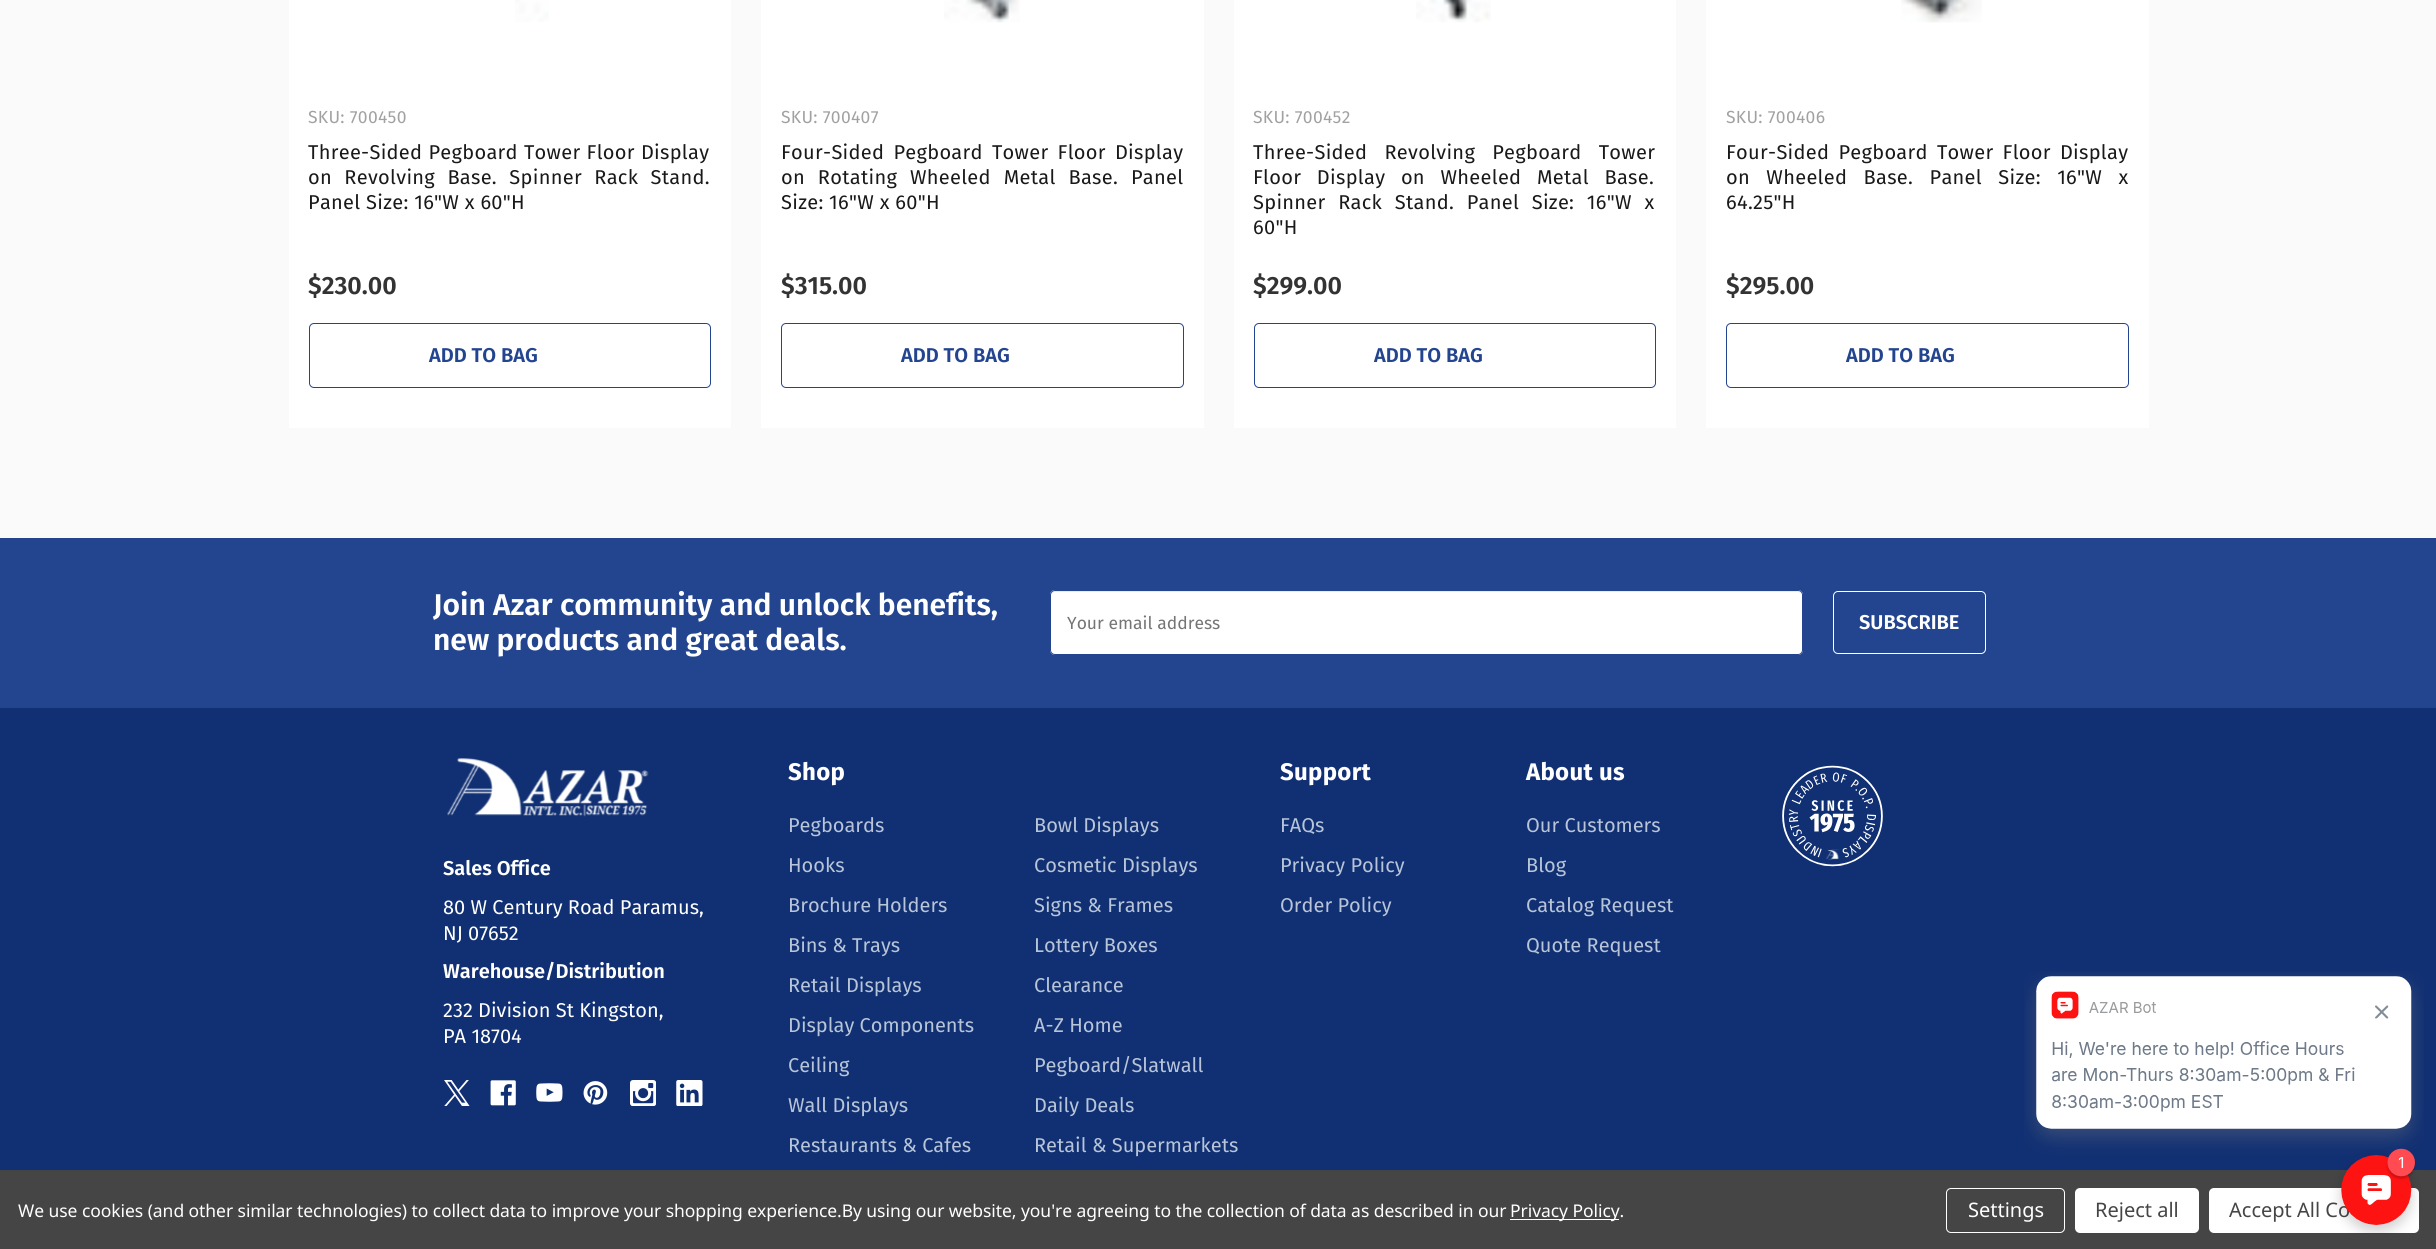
#include <cairo.h>
#include <math.h>
#include <stddef.h>


static void spaced_text(cairo_t *cr, double x, double y, const char *s, double letter, double word) {
    cairo_move_to(cr, x, y);
    while (*s) {
        char ch[5] = {0};
        int n = 0;
        do ch[n++] = *s++; while ((*s & 0xC0) == 0x80);
        cairo_show_text(cr, ch);
        cairo_rel_move_to(cr, letter + word * (*ch == ' '), 0);
    }
}

static void round_rect(cairo_t *cr, double x, double y, double w, double h, double r) {
    cairo_new_sub_path(cr);
    cairo_arc(cr, x + w - r, y + h - r, r, 0, M_PI / 2);
    cairo_arc(cr, x + r, y + h - r, r, M_PI / 2, M_PI);
    cairo_arc(cr, x + r, y + r, r, M_PI, 1.5 * M_PI);
    cairo_arc(cr, x + w - r, y + r, r, 1.5 * M_PI, 2 * M_PI);
    cairo_close_path(cr);
}

static void picture(cairo_t *cr, const char *path, double x, double y, double w, double h) {
    cairo_surface_t *image = cairo_image_surface_create_from_png(path);
    cairo_save(cr);
    cairo_set_source_surface(cr, image, x, y);
    cairo_rectangle(cr, x, y, w, h);
    cairo_fill(cr);
    cairo_restore(cr);
    cairo_surface_destroy(image);
}

int main(void) {
    cairo_surface_t *surface = cairo_image_surface_create(CAIRO_FORMAT_RGB24, 2436, 1249);
    cairo_t *cr = cairo_create(surface);
    cairo_font_options_t *options = cairo_font_options_create();
    cairo_font_options_set_hint_metrics(options, CAIRO_HINT_METRICS_OFF);
    cairo_font_options_set_hint_style(options, CAIRO_HINT_STYLE_NONE);
    cairo_set_font_options(cr, options);
    cairo_set_miter_limit(cr, 4);
    cairo_set_source_rgb(cr, 0.98, 0.98, 0.98);
    cairo_paint(cr);
    cairo_set_source_rgb(cr, 1, 1, 1);
    cairo_rectangle(cr, 289, 0, 442, 428);
    cairo_fill(cr);
    picture(cr, "img1.png", 515, 0, 34, 22);
    cairo_select_font_face(cr, "Fira Sans", CAIRO_FONT_SLANT_NORMAL, CAIRO_FONT_WEIGHT_NORMAL);
    cairo_set_font_size(cr, 17.5);
    cairo_set_source_rgb(cr, 0.631, 0.631, 0.631);
    spaced_text(cr, 308, 123, "SKU: 700450", 0.3, 0);
    cairo_set_font_size(cr, 20);
    cairo_set_source_rgb(cr, 0.102, 0.098, 0.098);
    spaced_text(cr, 308, 159, "Three-Sided Pegboard Tower Floor Display", 0.3, 0.5);
    spaced_text(cr, 308, 184, "on Revolving Base. Spinner Rack Stand.", 0.3, 6.75);
    spaced_text(cr, 308, 209, "Panel Size: 16\"W x 60\"H", 0.3, 0);
    cairo_select_font_face(cr, "Fira Sans SemiBold", CAIRO_FONT_SLANT_NORMAL, CAIRO_FONT_WEIGHT_NORMAL);
    cairo_set_font_size(cr, 25);
    cairo_set_source_rgb(cr, 0.2, 0.2, 0.2);
    cairo_move_to(cr, 308, 294);
    cairo_show_text(cr, "$230.00");
    round_rect(cr, 309.5, 323.5, 401, 64, 4.5);
    cairo_set_source_rgb(cr, 0.137, 0.271, 0.561);
    cairo_set_line_width(cr, 1);
    cairo_stroke(cr);
    cairo_set_font_size(cr, 20);
    cairo_move_to(cr, 429, 362);
    cairo_show_text(cr, "ADD TO BAG");
    cairo_set_source_rgb(cr, 1, 1, 1);
    cairo_rectangle(cr, 761, 0, 443, 428);
    cairo_fill(cr);
    picture(cr, "img2.png", 944, 0, 76, 23);
    cairo_select_font_face(cr, "Fira Sans", CAIRO_FONT_SLANT_NORMAL, CAIRO_FONT_WEIGHT_NORMAL);
    cairo_set_font_size(cr, 17.5);
    cairo_set_source_rgb(cr, 0.631, 0.631, 0.631);
    spaced_text(cr, 781, 123, "SKU: 700407", 0.3, 0);
    cairo_set_font_size(cr, 20);
    cairo_set_source_rgb(cr, 0.102, 0.098, 0.098);
    spaced_text(cr, 781, 159, "Four-Sided Pegboard Tower Floor Display", 0.3, 3.5);
    spaced_text(cr, 781, 184, "on Rotating Wheeled Metal Base. Panel", 0.3, 7.25);
    spaced_text(cr, 781, 209, "Size: 16\"W x 60\"H", 0.3, 0);
    cairo_select_font_face(cr, "Fira Sans SemiBold", CAIRO_FONT_SLANT_NORMAL, CAIRO_FONT_WEIGHT_NORMAL);
    cairo_set_font_size(cr, 25);
    cairo_set_source_rgb(cr, 0.2, 0.2, 0.2);
    cairo_move_to(cr, 781, 294);
    cairo_show_text(cr, "$315.00");
    round_rect(cr, 781.5, 323.5, 402, 64, 4.5);
    cairo_set_source_rgb(cr, 0.137, 0.271, 0.561);
    cairo_stroke(cr);
    cairo_set_font_size(cr, 20);
    cairo_move_to(cr, 901, 362);
    cairo_show_text(cr, "ADD TO BAG");
    cairo_set_source_rgb(cr, 1, 1, 1);
    cairo_rectangle(cr, 1234, 0, 442, 428);
    cairo_fill(cr);
    picture(cr, "img3.png", 1416, 0, 75, 23);
    cairo_select_font_face(cr, "Fira Sans", CAIRO_FONT_SLANT_NORMAL, CAIRO_FONT_WEIGHT_NORMAL);
    cairo_set_font_size(cr, 17.5);
    cairo_set_source_rgb(cr, 0.631, 0.631, 0.631);
    spaced_text(cr, 1253, 123, "SKU: 700452", 0.3, 0);
    cairo_set_font_size(cr, 20);
    cairo_set_source_rgb(cr, 0.102, 0.098, 0.098);
    spaced_text(cr, 1253, 159, "Three-Sided Revolving Pegboard Tower", 0.3, 11.5);
    spaced_text(cr, 1253, 184, "Floor Display on Wheeled Metal Base.", 0.3, 10);
    spaced_text(cr, 1253, 209, "Spinner Rack Stand. Panel Size: 16\"W x", 0.3, 7);
    spaced_text(cr, 1253, 234, "60\"H", 0.3, 0);
    cairo_select_font_face(cr, "Fira Sans SemiBold", CAIRO_FONT_SLANT_NORMAL, CAIRO_FONT_WEIGHT_NORMAL);
    cairo_set_font_size(cr, 25);
    cairo_set_source_rgb(cr, 0.2, 0.2, 0.2);
    cairo_move_to(cr, 1253, 294);
    cairo_show_text(cr, "$299.00");
    round_rect(cr, 1254.5, 323.5, 401, 64, 4.5);
    cairo_set_source_rgb(cr, 0.137, 0.271, 0.561);
    cairo_stroke(cr);
    cairo_set_font_size(cr, 20);
    cairo_move_to(cr, 1374, 362);
    cairo_show_text(cr, "ADD TO BAG");
    cairo_set_source_rgb(cr, 1, 1, 1);
    cairo_rectangle(cr, 1706, 0, 443, 428);
    cairo_fill(cr);
    picture(cr, "img4.png", 1901, 0, 81, 23);
    cairo_select_font_face(cr, "Fira Sans", CAIRO_FONT_SLANT_NORMAL, CAIRO_FONT_WEIGHT_NORMAL);
    cairo_set_font_size(cr, 17.5);
    cairo_set_source_rgb(cr, 0.631, 0.631, 0.631);
    spaced_text(cr, 1726, 123, "SKU: 700406", 0.3, 0);
    cairo_set_font_size(cr, 20);
    cairo_set_source_rgb(cr, 0.102, 0.098, 0.098);
    spaced_text(cr, 1726, 159, "Four-Sided Pegboard Tower Floor Display", 0.3, 3.5);
    spaced_text(cr, 1726, 184, "on Wheeled Base. Panel Size: 16\"W x", 0.3, 10.75);
    spaced_text(cr, 1726, 209, "64.25\"H", 0.3, 0);
    cairo_select_font_face(cr, "Fira Sans SemiBold", CAIRO_FONT_SLANT_NORMAL, CAIRO_FONT_WEIGHT_NORMAL);
    cairo_set_font_size(cr, 25);
    cairo_set_source_rgb(cr, 0.2, 0.2, 0.2);
    cairo_move_to(cr, 1726, 294);
    cairo_show_text(cr, "$295.00");
    round_rect(cr, 1726.5, 323.5, 402, 64, 4.5);
    cairo_set_source_rgb(cr, 0.137, 0.271, 0.561);
    cairo_stroke(cr);
    cairo_set_font_size(cr, 20);
    cairo_move_to(cr, 1846, 362);
    cairo_show_text(cr, "ADD TO BAG");
    cairo_rectangle(cr, 0, 538, 2436, 170);
    cairo_fill(cr);
    cairo_set_font_size(cr, 30);
    cairo_set_source_rgb(cr, 1, 1, 1);
    cairo_move_to(cr, 433, 615);
    cairo_show_text(cr, "Join Azar community and unlock benefits,");
    cairo_move_to(cr, 433, 650);
    cairo_show_text(cr, "new products and great deals.");
    round_rect(cr, 1050, 590, 753, 65, 5);
    cairo_fill(cr);
    cairo_set_source_rgb(cr, 0.925, 0.925, 0.925);
    cairo_new_path(cr);
    cairo_move_to(cr, 1055, 592);
    cairo_line_to(cr, 1798, 592);
    cairo_curve_to(cr, 1800, 592, 1801, 594, 1801, 596);
    cairo_curve_to(cr, 1801, 593, 1800, 591, 1797, 591);
    cairo_line_to(cr, 1055, 591);
    cairo_curve_to(cr, 1052, 591, 1051, 593, 1051, 596);
    cairo_curve_to(cr, 1051, 594, 1053, 592, 1055, 592);
    cairo_close_path(cr);
    cairo_fill(cr);
    round_rect(cr, 1050.5, 590.5, 752, 64, 4.5);
    cairo_set_source_rgb(cr, 0.137, 0.271, 0.561);
    cairo_stroke(cr);
    cairo_select_font_face(cr, "Fira Sans", CAIRO_FONT_SLANT_NORMAL, CAIRO_FONT_WEIGHT_NORMAL);
    cairo_set_font_size(cr, 17.5);
    cairo_set_source_rgb(cr, 0.459, 0.459, 0.459);
    cairo_move_to(cr, 1067, 629);
    cairo_show_text(cr, "Your email address");
    round_rect(cr, 1833.5, 591.5, 152, 62, 4.5);
    cairo_set_source_rgb(cr, 1, 1, 1);
    cairo_stroke(cr);
    cairo_select_font_face(cr, "Fira Sans SemiBold", CAIRO_FONT_SLANT_NORMAL, CAIRO_FONT_WEIGHT_NORMAL);
    cairo_set_font_size(cr, 20);
    cairo_move_to(cr, 1859, 629);
    cairo_show_text(cr, "SUBSCRIBE");
    cairo_set_source_rgb(cr, 0.067, 0.188, 0.451);
    cairo_rectangle(cr, 0, 708, 2436, 462);
    cairo_fill(cr);
    cairo_select_font_face(cr, "Fira Sans", CAIRO_FONT_SLANT_NORMAL, CAIRO_FONT_WEIGHT_BOLD);
    cairo_set_font_size(cr, 24);
    cairo_set_source_rgb(cr, 1, 1, 1);
    spaced_text(cr, 788, 780, "Shop", 0.3, 0);
    cairo_select_font_face(cr, "Fira Sans", CAIRO_FONT_SLANT_NORMAL, CAIRO_FONT_WEIGHT_NORMAL);
    cairo_set_font_size(cr, 20);
    cairo_set_source_rgb(cr, 0.722, 0.773, 0.847);
    cairo_move_to(cr, 788, 832);
    cairo_show_text(cr, "Pegboards");
    cairo_move_to(cr, 1034, 832);
    cairo_show_text(cr, "Bowl Displays");
    cairo_move_to(cr, 788, 872);
    cairo_show_text(cr, "Hooks");
    cairo_move_to(cr, 1034, 872);
    cairo_show_text(cr, "Cosmetic Displays");
    cairo_move_to(cr, 788, 912);
    cairo_show_text(cr, "Brochure Holders");
    cairo_move_to(cr, 1034, 912);
    cairo_show_text(cr, "Signs & Frames");
    cairo_move_to(cr, 788, 952);
    cairo_show_text(cr, "Bins & Trays");
    cairo_move_to(cr, 1034, 952);
    cairo_show_text(cr, "Lottery Boxes");
    cairo_move_to(cr, 788, 992);
    cairo_show_text(cr, "Retail Displays");
    cairo_move_to(cr, 1034, 992);
    cairo_show_text(cr, "Clearance");
    cairo_move_to(cr, 788, 1032);
    cairo_show_text(cr, "Display Components");
    cairo_move_to(cr, 1034, 1032);
    cairo_show_text(cr, "A-Z Home");
    cairo_move_to(cr, 788, 1072);
    cairo_show_text(cr, "Ceiling");
    cairo_move_to(cr, 1034, 1072);
    cairo_show_text(cr, "Pegboard/Slatwall");
    cairo_move_to(cr, 788, 1112);
    cairo_show_text(cr, "Wall Displays");
    cairo_move_to(cr, 1034, 1112);
    cairo_show_text(cr, "Daily Deals");
    cairo_move_to(cr, 788, 1152);
    cairo_show_text(cr, "Restaurants & Cafes");
    cairo_move_to(cr, 1034, 1152);
    cairo_show_text(cr, "Retail & Supermarkets");
    cairo_select_font_face(cr, "Fira Sans", CAIRO_FONT_SLANT_NORMAL, CAIRO_FONT_WEIGHT_BOLD);
    cairo_set_font_size(cr, 24);
    cairo_set_source_rgb(cr, 1, 1, 1);
    spaced_text(cr, 1280, 780, "Support", 0.3, 0);
    cairo_select_font_face(cr, "Fira Sans", CAIRO_FONT_SLANT_NORMAL, CAIRO_FONT_WEIGHT_NORMAL);
    cairo_set_font_size(cr, 20);
    cairo_set_source_rgb(cr, 0.722, 0.773, 0.847);
    cairo_move_to(cr, 1280, 832);
    cairo_show_text(cr, "FAQs");
    cairo_move_to(cr, 1280, 872);
    cairo_show_text(cr, "Privacy Policy");
    cairo_move_to(cr, 1280, 912);
    cairo_show_text(cr, "Order Policy");
    cairo_select_font_face(cr, "Fira Sans", CAIRO_FONT_SLANT_NORMAL, CAIRO_FONT_WEIGHT_BOLD);
    cairo_set_font_size(cr, 24);
    cairo_set_source_rgb(cr, 1, 1, 1);
    spaced_text(cr, 1526, 780, "About us", 0.3, 0);
    cairo_select_font_face(cr, "Fira Sans", CAIRO_FONT_SLANT_NORMAL, CAIRO_FONT_WEIGHT_NORMAL);
    cairo_set_font_size(cr, 20);
    cairo_set_source_rgb(cr, 0.722, 0.773, 0.847);
    cairo_move_to(cr, 1526, 832);
    cairo_show_text(cr, "Our Customers");
    cairo_move_to(cr, 1526, 872);
    cairo_show_text(cr, "Blog");
    cairo_move_to(cr, 1526, 912);
    cairo_show_text(cr, "Catalog Request");
    cairo_move_to(cr, 1526, 952);
    cairo_show_text(cr, "Quote Request");
    picture(cr, "img5.png", 1782, 765, 101, 102);
    picture(cr, "img6.png", 447, 758, 202, 59);
    cairo_select_font_face(cr, "Fira Sans SemiBold", CAIRO_FONT_SLANT_NORMAL, CAIRO_FONT_WEIGHT_NORMAL);
    cairo_set_source_rgb(cr, 1, 1, 1);
    cairo_move_to(cr, 443, 875);
    cairo_show_text(cr, "Sales Office");
    cairo_select_font_face(cr, "Fira Sans", CAIRO_FONT_SLANT_NORMAL, CAIRO_FONT_WEIGHT_NORMAL);
    cairo_move_to(cr, 443, 914);
    cairo_show_text(cr, "80 W Century Road Paramus,");
    cairo_move_to(cr, 443, 940);
    cairo_show_text(cr, "NJ 07652");
    cairo_select_font_face(cr, "Fira Sans SemiBold", CAIRO_FONT_SLANT_NORMAL, CAIRO_FONT_WEIGHT_NORMAL);
    cairo_move_to(cr, 443, 978);
    cairo_show_text(cr, "Warehouse/Distribution");
    cairo_select_font_face(cr, "Fira Sans", CAIRO_FONT_SLANT_NORMAL, CAIRO_FONT_WEIGHT_NORMAL);
    cairo_move_to(cr, 443, 1017);
    cairo_show_text(cr, "232 Division St Kingston,");
    cairo_move_to(cr, 443, 1043);
    cairo_show_text(cr, "PA 18704");
    picture(cr, "img7.png", 444, 1080, 26, 26);
    picture(cr, "img8.png", 490, 1080, 26, 26);
    picture(cr, "img9.png", 536, 1083, 27, 19);
    picture(cr, "img10.png", 583, 1081, 25, 24);
    picture(cr, "img11.png", 630, 1080, 26, 26);
    picture(cr, "img12.png", 676, 1080, 27, 26);
    cairo_set_source_rgb(cr, 0.271, 0.271, 0.271);
    cairo_rectangle(cr, 0, 1170, 2436, 79);
    cairo_fill(cr);
    round_rect(cr, 1946.5, 1188.5, 118, 44, 4.5);
    cairo_set_source_rgb(cr, 1, 1, 1);
    cairo_stroke(cr);
    cairo_select_font_face(cr, "Noto Sans", CAIRO_FONT_SLANT_NORMAL, CAIRO_FONT_WEIGHT_NORMAL);
    cairo_move_to(cr, 1968, 1217);
    cairo_show_text(cr, "Settings");
    round_rect(cr, 2075, 1188, 124, 45, 5);
    cairo_fill(cr);
    cairo_set_source_rgb(cr, 0.271, 0.271, 0.271);
    cairo_move_to(cr, 2095, 1217);
    cairo_show_text(cr, "Reject all");
    cairo_set_source_rgb(cr, 1, 1, 1);
    round_rect(cr, 2209, 1188, 210, 45, 5);
    cairo_fill(cr);
    cairo_set_source_rgb(cr, 0.271, 0.271, 0.271);
    cairo_move_to(cr, 2229, 1217);
    cairo_show_text(cr, "Accept All Co");
    picture(cr, "img13.png", 2024, 971, 400, 263);
    cairo_set_font_size(cr, 17.5);
    cairo_set_source_rgb(cr, 1, 1, 1);
    spaced_text(cr, 18, 1217, "We use cookies (and other similar technologies) to collect data to improve your shopping experience.By using our website, you're agreeing to the collection of data as described in our", -0.06, 0);
    cairo_rectangle(cr, 1510, 1219, 109, 1);
    cairo_fill(cr);
    spaced_text(cr, 1510, 1217, "Privacy Policy.", -0.06, 0);
    cairo_surface_write_to_png(surface, "page.png");
    cairo_font_options_destroy(options);
    cairo_destroy(cr);
    cairo_surface_destroy(surface);
    return 0;
}
